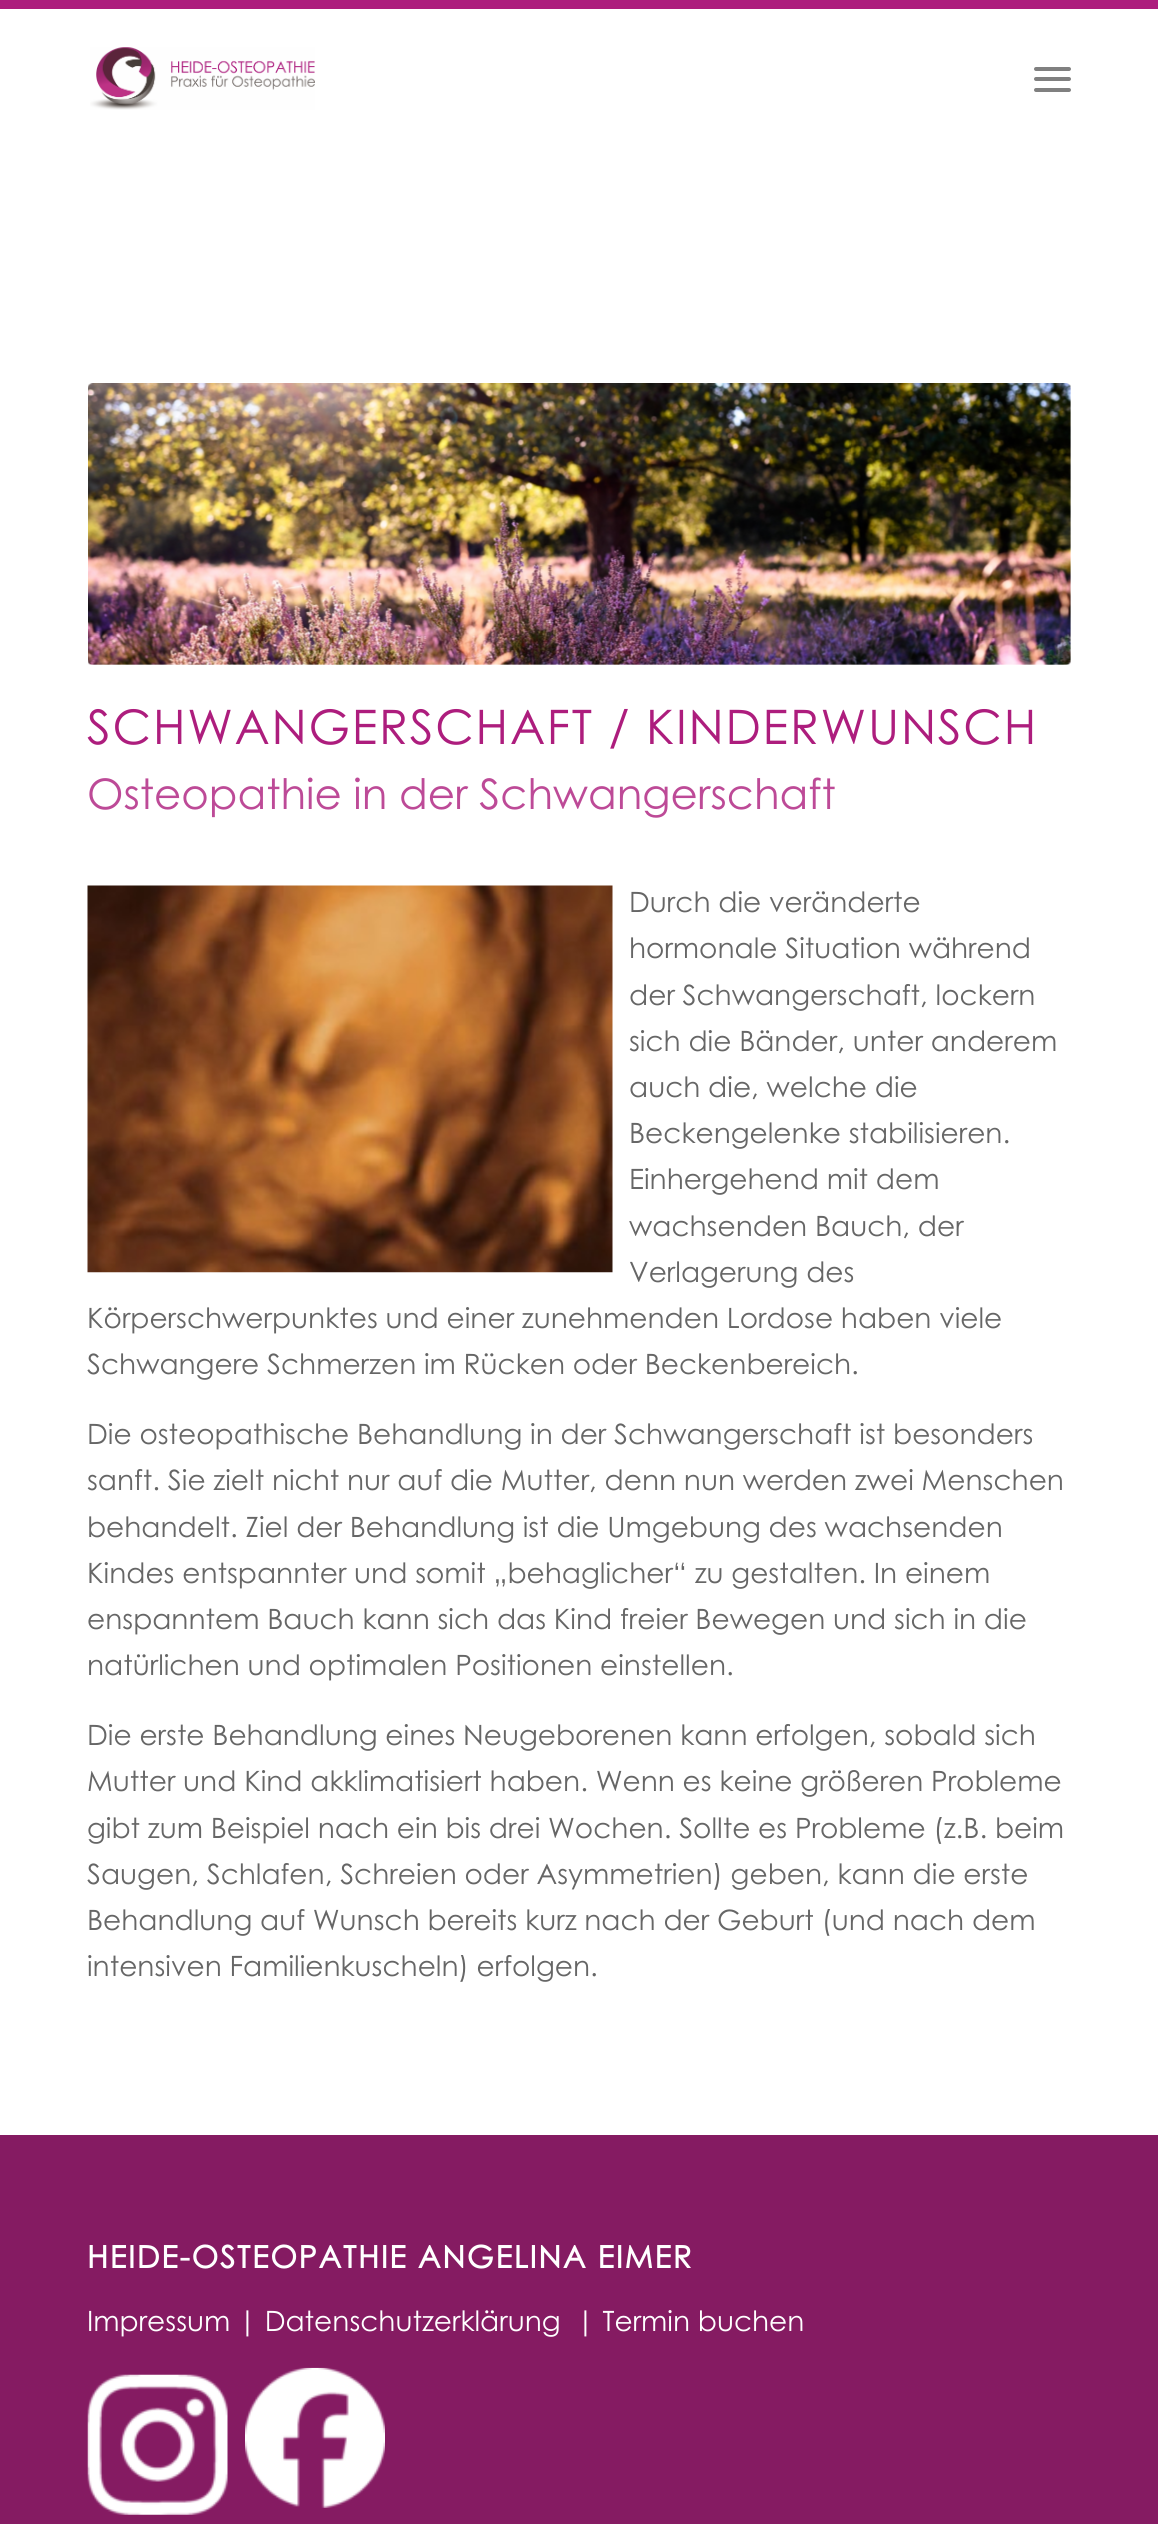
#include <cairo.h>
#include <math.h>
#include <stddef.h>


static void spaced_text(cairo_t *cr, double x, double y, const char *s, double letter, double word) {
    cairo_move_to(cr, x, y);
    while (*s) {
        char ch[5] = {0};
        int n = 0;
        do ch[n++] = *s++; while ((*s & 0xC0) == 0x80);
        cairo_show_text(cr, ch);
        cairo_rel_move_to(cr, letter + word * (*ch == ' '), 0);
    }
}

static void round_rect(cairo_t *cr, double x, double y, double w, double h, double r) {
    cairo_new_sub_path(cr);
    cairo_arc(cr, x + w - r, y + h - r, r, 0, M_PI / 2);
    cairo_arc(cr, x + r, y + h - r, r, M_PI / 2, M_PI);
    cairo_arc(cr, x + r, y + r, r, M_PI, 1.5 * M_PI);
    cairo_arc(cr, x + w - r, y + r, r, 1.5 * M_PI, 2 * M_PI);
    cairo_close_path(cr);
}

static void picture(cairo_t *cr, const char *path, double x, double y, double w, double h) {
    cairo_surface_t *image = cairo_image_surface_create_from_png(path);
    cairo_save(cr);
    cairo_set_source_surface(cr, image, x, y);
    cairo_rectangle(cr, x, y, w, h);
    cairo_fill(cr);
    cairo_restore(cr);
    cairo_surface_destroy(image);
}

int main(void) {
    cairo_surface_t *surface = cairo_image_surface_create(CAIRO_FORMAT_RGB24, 1158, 2524);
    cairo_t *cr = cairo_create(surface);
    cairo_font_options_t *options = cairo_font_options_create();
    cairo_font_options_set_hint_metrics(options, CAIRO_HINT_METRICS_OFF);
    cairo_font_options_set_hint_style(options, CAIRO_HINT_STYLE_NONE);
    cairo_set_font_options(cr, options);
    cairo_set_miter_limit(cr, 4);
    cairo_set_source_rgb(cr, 1, 1, 1);
    cairo_paint(cr);
    cairo_set_source_rgb(cr, 0.678, 0.114, 0.49);
    cairo_rectangle(cr, 0, 0, 1158, 9);
    cairo_fill(cr);
    picture(cr, "img1.png", 90, 47, 225, 63);
    cairo_set_source_rgb(cr, 0.502, 0.502, 0.502);
    round_rect(cr, 1034, 77, 37, 4, 2);
    cairo_fill(cr);
    round_rect(cr, 1034, 67, 37, 4, 2);
    cairo_fill(cr);
    round_rect(cr, 1034, 88, 37, 4, 2);
    cairo_fill(cr);
    picture(cr, "img2.png", 88, 383, 983, 282);
    cairo_select_font_face(cr, "Century Gothic", CAIRO_FONT_SLANT_NORMAL, CAIRO_FONT_WEIGHT_NORMAL);
    cairo_set_font_size(cr, 47.6);
    cairo_set_source_rgb(cr, 0.678, 0.114, 0.49);
    spaced_text(cr, 87, 744, "SCHWANGERSCHAFT / KINDERWUNSCH", 1.75, 0);
    cairo_set_font_size(cr, 42);
    cairo_set_source_rgb(cr, 0.741, 0.29, 0.592);
    cairo_move_to(cr, 87, 809);
    cairo_show_text(cr, "Osteopathie in der Schwangerschaft");
    picture(cr, "img3.png", 87, 885, 526, 388);
    cairo_set_font_size(cr, 28);
    cairo_set_source_rgb(cr, 0.4, 0.4, 0.4);
    cairo_move_to(cr, 629, 912);
    cairo_show_text(cr, "Durch die veränderte");
    cairo_move_to(cr, 629, 958);
    cairo_show_text(cr, "hormonale Situation während");
    cairo_move_to(cr, 629, 1005);
    cairo_show_text(cr, "der Schwangerschaft, lockern");
    cairo_move_to(cr, 629, 1051);
    cairo_show_text(cr, "sich die Bänder, unter anderem");
    cairo_move_to(cr, 629, 1097);
    cairo_show_text(cr, "auch die, welche die");
    cairo_move_to(cr, 629, 1143);
    cairo_show_text(cr, "Beckengelenke stabilisieren.");
    cairo_move_to(cr, 629, 1189);
    cairo_show_text(cr, "Einhergehend mit dem");
    cairo_move_to(cr, 629, 1236);
    cairo_show_text(cr, "wachsenden Bauch, der");
    cairo_move_to(cr, 629, 1282);
    cairo_show_text(cr, "Verlagerung des");
    cairo_move_to(cr, 87, 1328);
    cairo_show_text(cr, "Körperschwerpunktes und einer zunehmenden Lordose haben viele");
    cairo_move_to(cr, 87, 1374);
    cairo_show_text(cr, "Schwangere Schmerzen im Rücken oder Beckenbereich.");
    cairo_move_to(cr, 87, 1444);
    cairo_show_text(cr, "Die osteopathische Behandlung in der Schwangerschaft ist besonders");
    cairo_move_to(cr, 87, 1490);
    cairo_show_text(cr, "sanft. Sie zielt nicht nur auf die Mutter, denn nun werden zwei Menschen");
    cairo_move_to(cr, 87, 1537);
    cairo_show_text(cr, "behandelt. Ziel der Behandlung ist die Umgebung des wachsenden");
    cairo_move_to(cr, 87, 1583);
    cairo_show_text(cr, "Kindes entspannter und somit „behaglicher“ zu gestalten. In einem");
    cairo_move_to(cr, 87, 1629);
    cairo_show_text(cr, "enspanntem Bauch kann sich das Kind freier Bewegen und sich in die");
    cairo_move_to(cr, 87, 1675);
    cairo_show_text(cr, "natürlichen und optimalen Positionen einstellen.");
    cairo_move_to(cr, 87, 1745);
    cairo_show_text(cr, "Die erste Behandlung eines Neugeborenen kann erfolgen, sobald sich");
    cairo_move_to(cr, 87, 1791);
    cairo_show_text(cr, "Mutter und Kind akklimatisiert haben. Wenn es keine größeren Probleme");
    cairo_move_to(cr, 87, 1838);
    cairo_show_text(cr, "gibt zum Beispiel nach ein bis drei Wochen. Sollte es Probleme (z.B. beim");
    cairo_move_to(cr, 87, 1884);
    cairo_show_text(cr, "Saugen, Schlafen, Schreien oder Asymmetrien) geben, kann die erste");
    cairo_move_to(cr, 87, 1930);
    cairo_show_text(cr, "Behandlung auf Wunsch bereits kurz nach der Geburt (und nach dem");
    cairo_move_to(cr, 87, 1976);
    cairo_show_text(cr, "intensiven Familienkuscheln) erfolgen.");
    cairo_set_source_rgb(cr, 0.522, 0.106, 0.384);
    cairo_rectangle(cr, 0, 2135, 1158, 389);
    cairo_fill(cr);
    cairo_select_font_face(cr, "Century Gothic", CAIRO_FONT_SLANT_NORMAL, CAIRO_FONT_WEIGHT_BOLD);
    cairo_set_font_size(cr, 30.75);
    cairo_set_source_rgb(cr, 1, 1, 1);
    spaced_text(cr, 87, 2268, "HEIDE-OSTEOPATHIE ANGELINA EIMER", 1.75, 0);
    cairo_select_font_face(cr, "Century Gothic", CAIRO_FONT_SLANT_NORMAL, CAIRO_FONT_WEIGHT_NORMAL);
    cairo_set_font_size(cr, 28);
    cairo_move_to(cr, 87, 2331);
    cairo_show_text(cr, "Impressum | Datenschutzerklärung");
    cairo_move_to(cr, 576, 2331);
    cairo_show_text(cr, "| Termin buchen");
    picture(cr, "img4.png", 87, 2374, 141, 141);
    picture(cr, "img5.png", 245, 2367, 140, 141);
    cairo_surface_write_to_png(surface, "page.png");
    cairo_font_options_destroy(options);
    cairo_destroy(cr);
    cairo_surface_destroy(surface);
    return 0;
}
